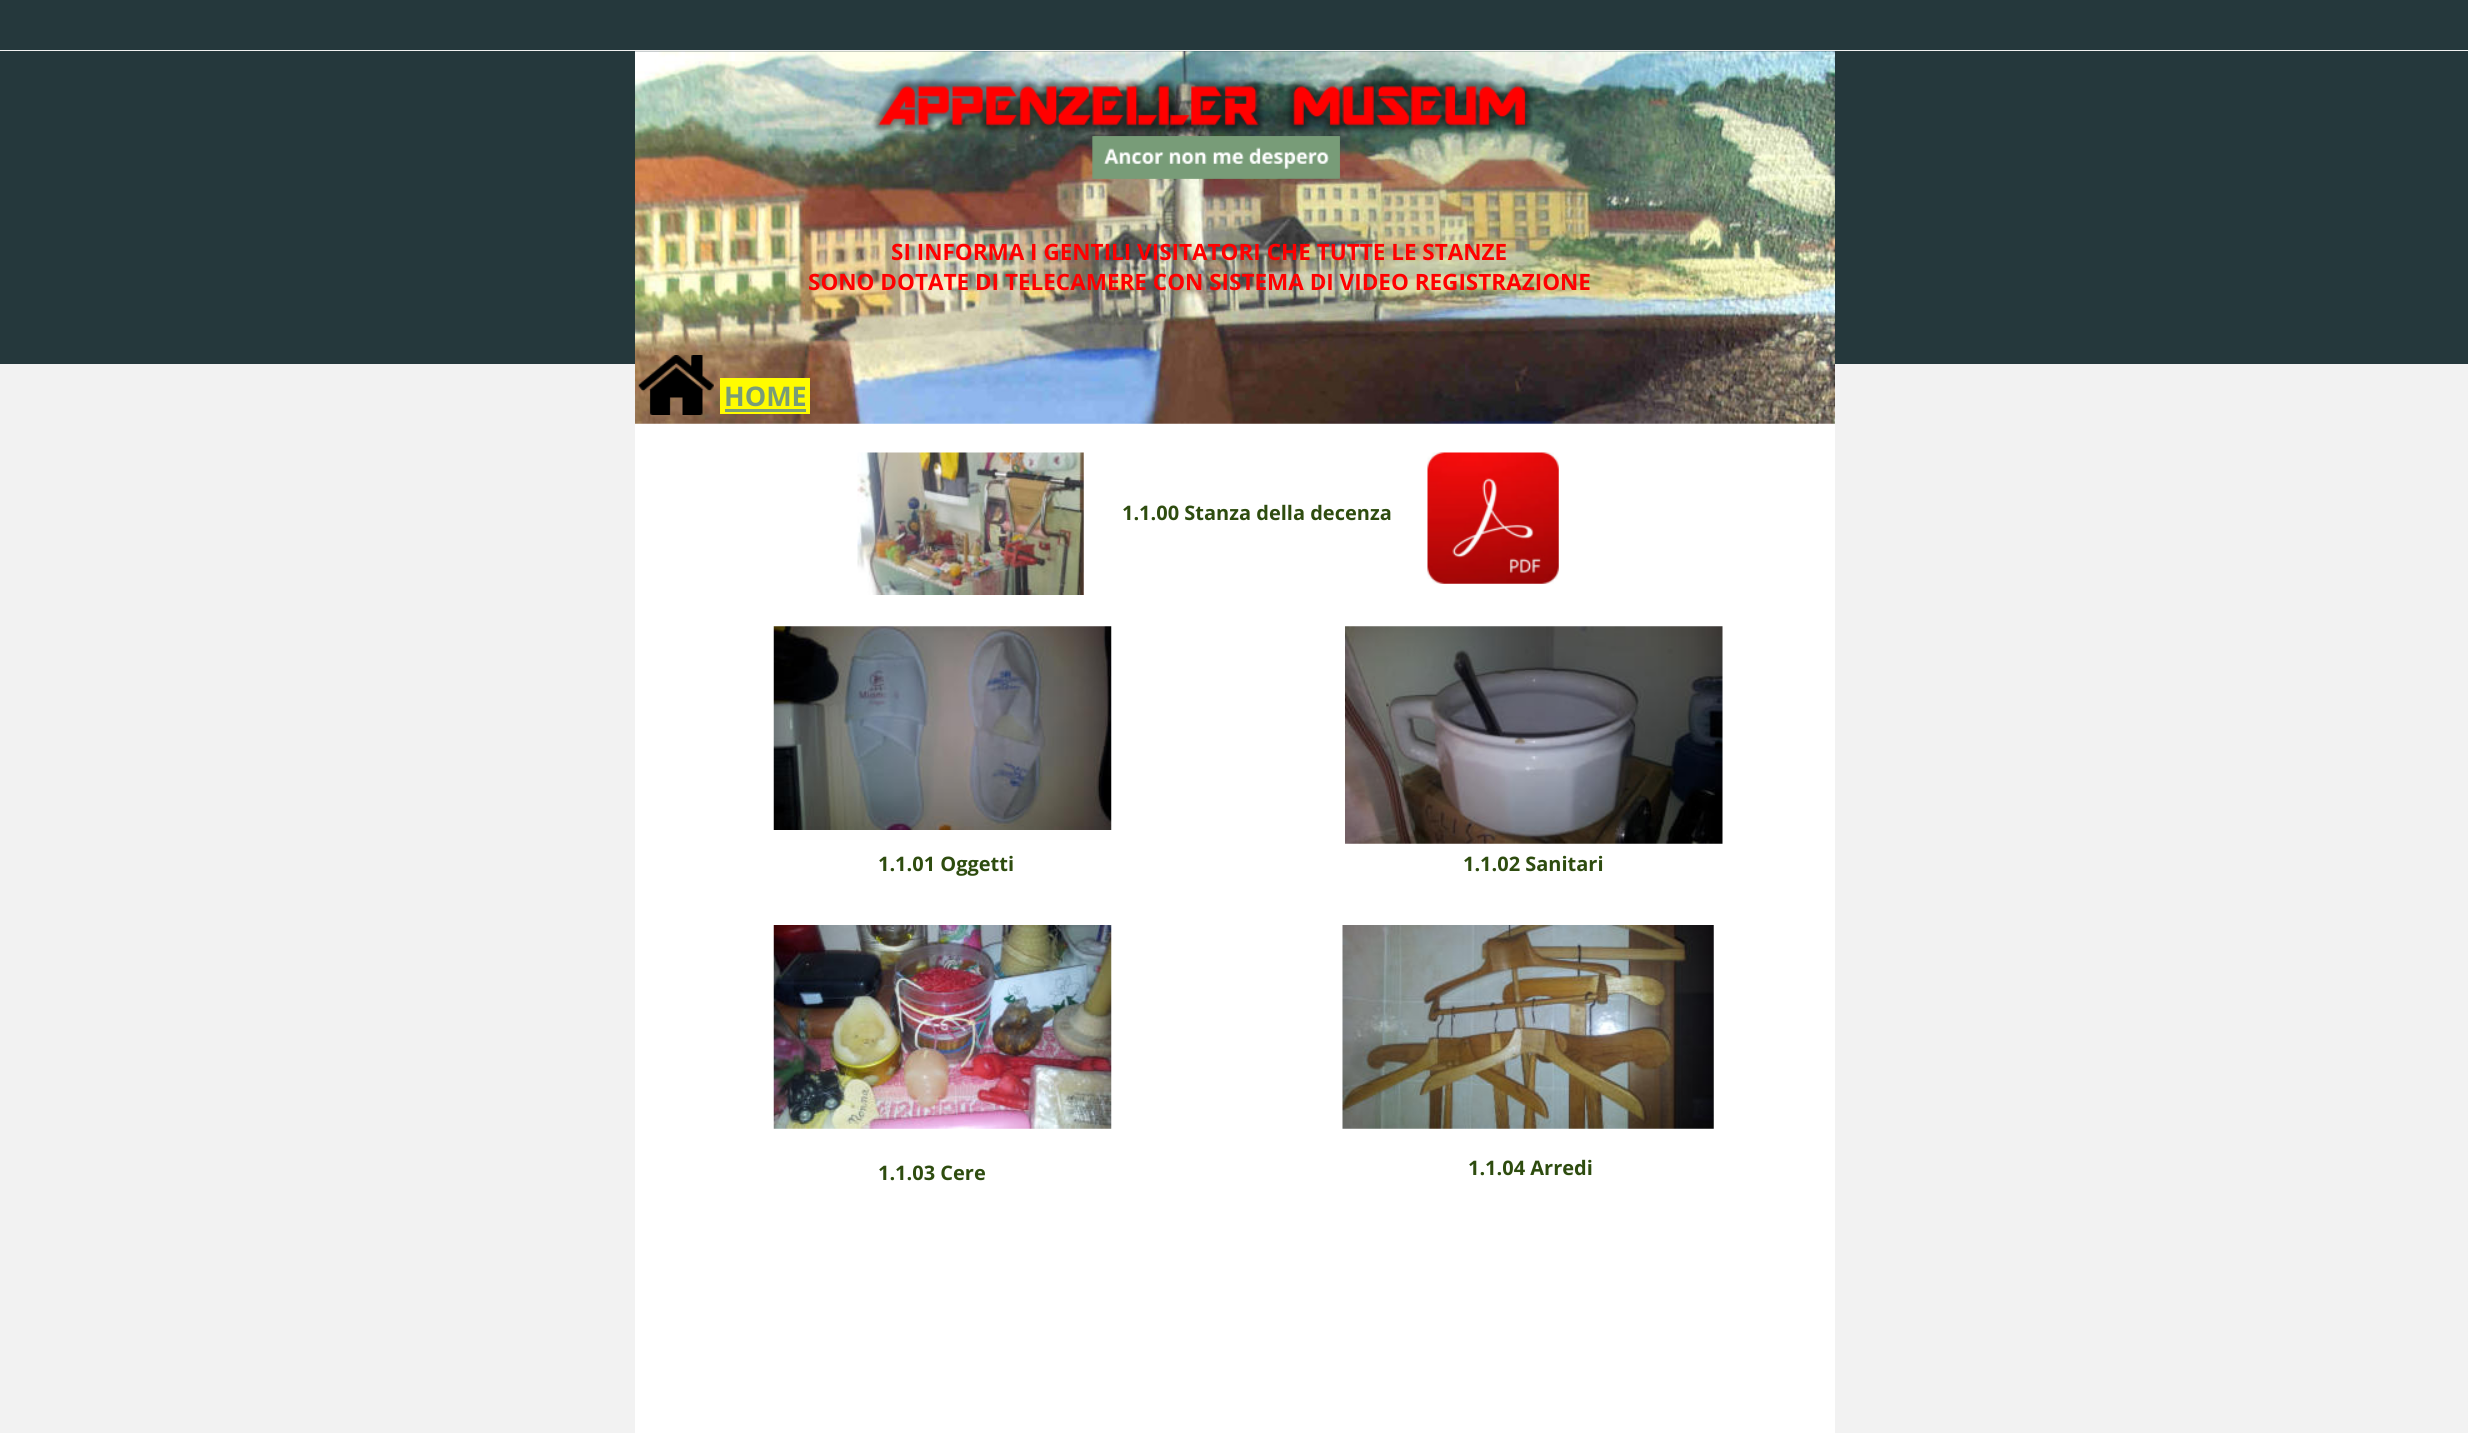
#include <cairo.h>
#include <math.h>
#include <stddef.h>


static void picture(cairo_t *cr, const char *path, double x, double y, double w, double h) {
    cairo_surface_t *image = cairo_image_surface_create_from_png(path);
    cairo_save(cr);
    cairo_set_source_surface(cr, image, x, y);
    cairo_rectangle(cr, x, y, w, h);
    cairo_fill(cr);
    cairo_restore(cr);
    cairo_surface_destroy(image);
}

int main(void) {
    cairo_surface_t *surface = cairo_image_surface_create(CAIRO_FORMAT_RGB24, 2468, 1433);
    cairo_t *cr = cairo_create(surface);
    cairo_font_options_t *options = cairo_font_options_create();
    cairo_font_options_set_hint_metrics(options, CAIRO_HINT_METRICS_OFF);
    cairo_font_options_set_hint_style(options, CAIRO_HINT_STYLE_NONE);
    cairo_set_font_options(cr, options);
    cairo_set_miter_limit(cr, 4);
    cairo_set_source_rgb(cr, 0.949, 0.949, 0.949);
    cairo_paint(cr);
    cairo_set_source_rgb(cr, 0.145, 0.22, 0.235);
    cairo_rectangle(cr, 0, 0, 2468, 50);
    cairo_fill(cr);
    cairo_rectangle(cr, 0, 51, 2468, 313);
    cairo_fill(cr);
    cairo_set_source_rgb(cr, 1, 1, 1);
    cairo_rectangle(cr, 635, 423, 1200, 1010);
    cairo_fill(cr);
    picture(cr, "img1.png", 635, 51, 1200, 373);
    picture(cr, "img2.png", 871, 78, 662, 55);
    picture(cr, "img3.png", 1092, 136, 248, 43);
    picture(cr, "img4.png", 1092, 136, 248, 43);
    cairo_select_font_face(cr, "Open Sans", CAIRO_FONT_SLANT_NORMAL, CAIRO_FONT_WEIGHT_BOLD);
    cairo_set_font_size(cr, 22.5);
    cairo_set_source_rgb(cr, 1, 0, 0);
    cairo_move_to(cr, 891, 260);
    cairo_show_text(cr, "SI INFORMA I GENTILI VISITATORI CHE TUTTE LE STANZE");
    cairo_move_to(cr, 808, 290);
    cairo_show_text(cr, "SONO DOTATE DI TELECAMERE CON SISTEMA DI VIDEO REGISTRAZIONE");
    picture(cr, "img5.png", 638, 355, 76, 60);
    cairo_set_source_rgb(cr, 1, 0.988, 0);
    cairo_rectangle(cr, 720, 378, 90, 36);
    cairo_fill(cr);
    cairo_set_font_size(cr, 27);
    cairo_set_source_rgb(cr, 0.471, 0.612, 0.471);
    cairo_move_to(cr, 724, 406);
    cairo_show_text(cr, "HOME");
    cairo_rectangle(cr, 725, 409, 81, 3);
    cairo_fill(cr);
    picture(cr, "img6.png", 857, 452, 227, 143);
    cairo_set_font_size(cr, 20);
    cairo_set_source_rgb(cr, 0.18, 0.298, 0.059);
    cairo_move_to(cr, 1122, 520);
    cairo_show_text(cr, "1.1.00 Stanza della decenza");
    picture(cr, "img7.png", 1427, 452, 132, 132);
    picture(cr, "img8.png", 773, 626, 339, 204);
    picture(cr, "img9.png", 1345, 626, 378, 218);
    cairo_move_to(cr, 878, 871);
    cairo_show_text(cr, "1.1.01 Oggetti");
    cairo_move_to(cr, 1463, 871);
    cairo_show_text(cr, "1.1.02 Sanitari");
    picture(cr, "img10.png", 773, 925, 339, 204);
    picture(cr, "img11.png", 1342, 925, 372, 204);
    cairo_move_to(cr, 878, 1180);
    cairo_show_text(cr, "1.1.03 Cere");
    cairo_move_to(cr, 1468, 1175);
    cairo_show_text(cr, "1.1.04 Arredi");
    cairo_surface_write_to_png(surface, "page.png");
    cairo_font_options_destroy(options);
    cairo_destroy(cr);
    cairo_surface_destroy(surface);
    return 0;
}
